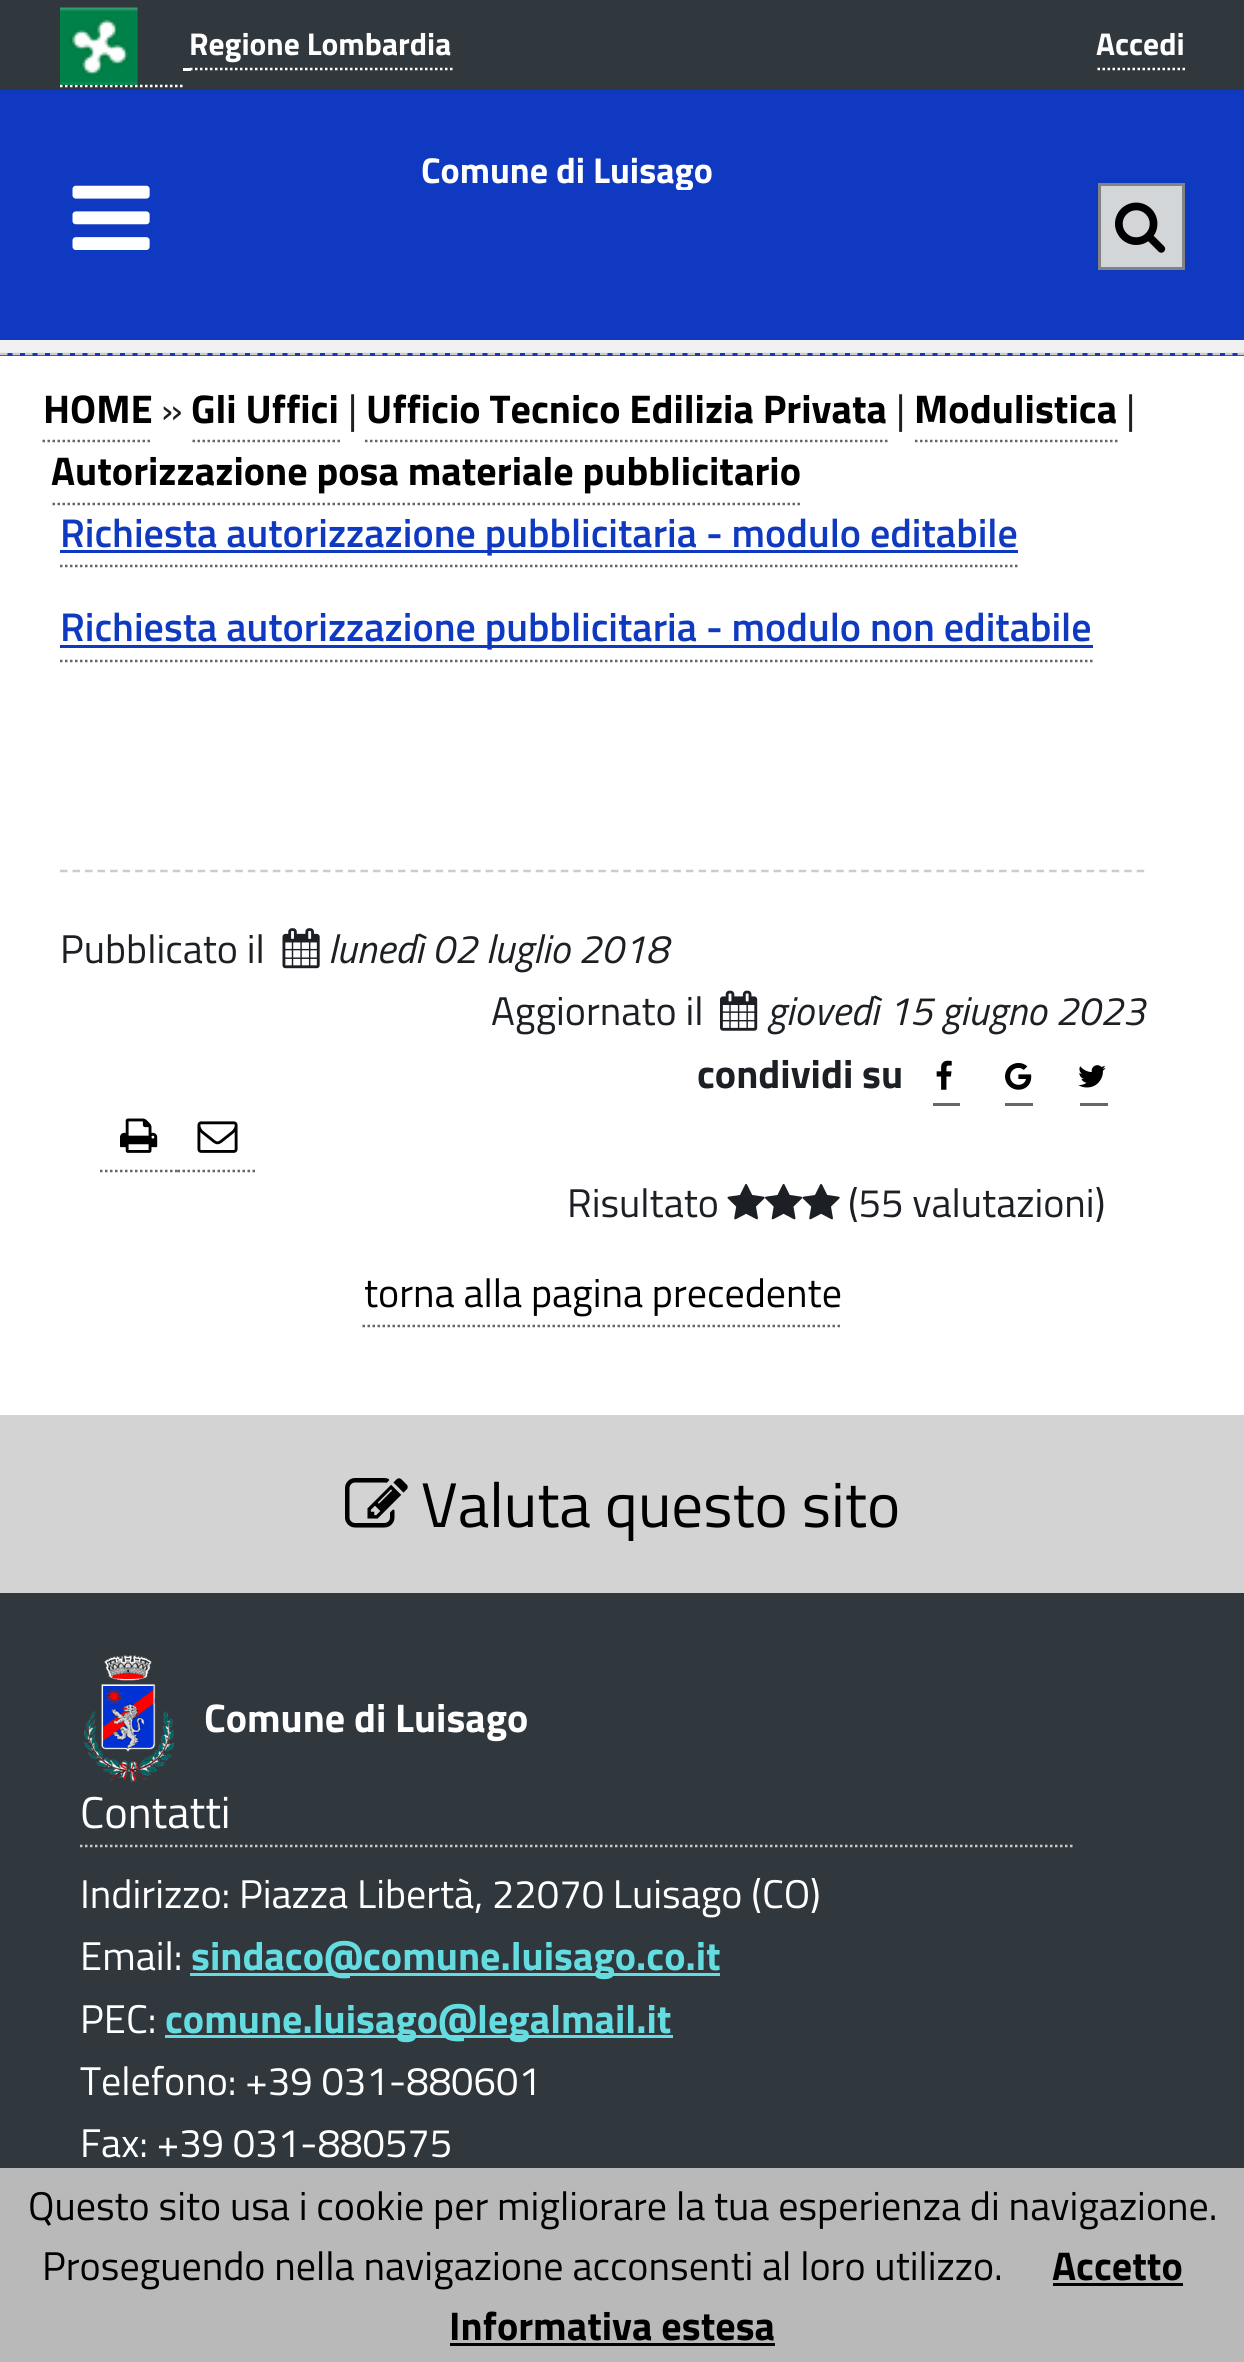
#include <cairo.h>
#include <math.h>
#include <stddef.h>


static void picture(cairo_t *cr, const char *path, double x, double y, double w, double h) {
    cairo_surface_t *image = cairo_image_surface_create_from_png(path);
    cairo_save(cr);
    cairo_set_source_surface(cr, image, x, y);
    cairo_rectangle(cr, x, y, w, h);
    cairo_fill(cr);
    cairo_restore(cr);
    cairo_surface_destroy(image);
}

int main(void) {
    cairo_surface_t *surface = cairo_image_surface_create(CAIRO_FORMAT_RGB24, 1244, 2362);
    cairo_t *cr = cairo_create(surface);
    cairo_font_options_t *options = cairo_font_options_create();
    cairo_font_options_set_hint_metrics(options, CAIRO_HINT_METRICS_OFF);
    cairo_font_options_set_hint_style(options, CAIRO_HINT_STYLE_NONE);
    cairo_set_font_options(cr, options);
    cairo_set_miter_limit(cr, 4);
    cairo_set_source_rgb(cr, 0.941, 0.941, 0.941);
    cairo_paint(cr);
    cairo_set_source_rgb(cr, 0.188, 0.216, 0.239);
    cairo_rectangle(cr, 0, 0, 1244, 90);
    cairo_fill(cr);
    cairo_new_path(cr);
    cairo_move_to(cr, 60, 86);
    cairo_line_to(cr, 182.5, 86);
    cairo_set_source_rgb(cr, 1, 1, 1);
    cairo_set_line_width(cr, 2.5);
    cairo_set_dash(cr, (double[]){2.5, 2.5}, 2, 0);
    cairo_stroke(cr);
    picture(cr, "img1.png", 60, 7, 78, 78);
    cairo_select_font_face(cr, "Titillium Web", CAIRO_FONT_SLANT_NORMAL, CAIRO_FONT_WEIGHT_BOLD);
    cairo_set_font_size(cr, 31.5);
    cairo_move_to(cr, 189, 55);
    cairo_show_text(cr, "Regione Lombardia");
    cairo_rectangle(cr, 183, 68, 8, 3);
    cairo_fill(cr);
    cairo_new_path(cr);
    cairo_move_to(cr, 190, 69);
    cairo_line_to(cr, 452.5, 69);
    cairo_stroke(cr);
    cairo_move_to(cr, 1096, 55);
    cairo_show_text(cr, "Accedi");
    cairo_new_path(cr);
    cairo_move_to(cr, 1097.5, 69);
    cairo_line_to(cr, 1185, 69);
    cairo_stroke(cr);
    cairo_set_source_rgb(cr, 0.059, 0.224, 0.753);
    cairo_rectangle(cr, 0, 90, 1244, 250);
    cairo_fill(cr);
    cairo_save(cr);
    cairo_rectangle(cr, 235, 150, 675, 40);
    cairo_clip(cr);
    cairo_set_font_size(cr, 36);
    cairo_set_source_rgb(cr, 1, 1, 1);
    cairo_move_to(cr, 421, 183);
    cairo_show_text(cr, "Comune di Luisago");
    cairo_restore(cr);
    picture(cr, "img2.png", 72, 185, 78, 65);
    cairo_set_source_rgb(cr, 0.827, 0.839, 0.847);
    cairo_rectangle(cr, 1099.5, 184.5, 84, 84);
    cairo_fill_preserve(cr);
    cairo_set_source_rgb(cr, 0.514, 0.514, 0.514);
    cairo_set_line_width(cr, 3);
    cairo_set_dash(cr, NULL, 0, 0);
    cairo_stroke(cr);
    picture(cr, "img3.png", 1115, 202, 51, 51);
    cairo_set_source_rgb(cr, 0.059, 0.224, 0.753);
    cairo_rectangle(cr, 0, 353, 1244, 3);
    cairo_fill(cr);
    cairo_new_path(cr);
    cairo_move_to(cr, 0, 354);
    cairo_line_to(cr, 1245, 354);
    cairo_set_source_rgb(cr, 0.8, 0.8, 0.8);
    cairo_set_line_width(cr, 2.5);
    cairo_set_dash(cr, (double[]){7.5, 5}, 2, 0);
    cairo_stroke(cr);
    cairo_set_source_rgb(cr, 1, 1, 1);
    cairo_rectangle(cr, 0, 356, 1244, 1059);
    cairo_fill(cr);
    cairo_set_font_size(cr, 40.05);
    cairo_set_source_rgb(cr, 0, 0, 0);
    cairo_move_to(cr, 43, 423);
    cairo_show_text(cr, "HOME");
    cairo_new_path(cr);
    cairo_move_to(cr, 42.5, 441);
    cairo_line_to(cr, 152.5, 441);
    cairo_set_source_rgb(cr, 0.4, 0.4, 0.4);
    cairo_set_dash(cr, (double[]){2.5, 2.5}, 2, 0);
    cairo_stroke(cr);
    cairo_select_font_face(cr, "Titillium Web", CAIRO_FONT_SLANT_NORMAL, CAIRO_FONT_WEIGHT_NORMAL);
    cairo_set_source_rgb(cr, 0.11, 0.125, 0.141);
    cairo_move_to(cr, 161, 423);
    cairo_show_text(cr, "»");
    cairo_select_font_face(cr, "Titillium Web", CAIRO_FONT_SLANT_NORMAL, CAIRO_FONT_WEIGHT_BOLD);
    cairo_set_source_rgb(cr, 0, 0, 0);
    cairo_move_to(cr, 191, 423);
    cairo_show_text(cr, "Gli Uffici");
    cairo_new_path(cr);
    cairo_move_to(cr, 192.5, 441);
    cairo_line_to(cr, 340, 441);
    cairo_set_source_rgb(cr, 0.4, 0.4, 0.4);
    cairo_stroke(cr);
    cairo_select_font_face(cr, "Titillium Web", CAIRO_FONT_SLANT_NORMAL, CAIRO_FONT_WEIGHT_NORMAL);
    cairo_set_source_rgb(cr, 0.11, 0.125, 0.141);
    cairo_move_to(cr, 348, 423);
    cairo_show_text(cr, "|");
    cairo_select_font_face(cr, "Titillium Web", CAIRO_FONT_SLANT_NORMAL, CAIRO_FONT_WEIGHT_BOLD);
    cairo_set_source_rgb(cr, 0, 0, 0);
    cairo_move_to(cr, 366, 423);
    cairo_show_text(cr, "Ufficio Tecnico Edilizia Privata");
    cairo_new_path(cr);
    cairo_move_to(cr, 365, 441);
    cairo_line_to(cr, 887.5, 441);
    cairo_set_source_rgb(cr, 0.4, 0.4, 0.4);
    cairo_stroke(cr);
    cairo_select_font_face(cr, "Titillium Web", CAIRO_FONT_SLANT_NORMAL, CAIRO_FONT_WEIGHT_NORMAL);
    cairo_set_source_rgb(cr, 0.11, 0.125, 0.141);
    cairo_move_to(cr, 896, 423);
    cairo_show_text(cr, "|");
    cairo_select_font_face(cr, "Titillium Web", CAIRO_FONT_SLANT_NORMAL, CAIRO_FONT_WEIGHT_BOLD);
    cairo_set_source_rgb(cr, 0, 0, 0);
    cairo_move_to(cr, 914, 423);
    cairo_show_text(cr, "Modulistica");
    cairo_new_path(cr);
    cairo_move_to(cr, 915, 441);
    cairo_line_to(cr, 1117.5, 441);
    cairo_set_source_rgb(cr, 0.4, 0.4, 0.4);
    cairo_stroke(cr);
    cairo_select_font_face(cr, "Titillium Web", CAIRO_FONT_SLANT_NORMAL, CAIRO_FONT_WEIGHT_NORMAL);
    cairo_set_source_rgb(cr, 0.11, 0.125, 0.141);
    cairo_move_to(cr, 1126, 423);
    cairo_show_text(cr, "|");
    cairo_select_font_face(cr, "Titillium Web", CAIRO_FONT_SLANT_NORMAL, CAIRO_FONT_WEIGHT_BOLD);
    cairo_set_source_rgb(cr, 0, 0, 0);
    cairo_move_to(cr, 51, 485);
    cairo_show_text(cr, "Autorizzazione posa materiale pubblicitario");
    cairo_new_path(cr);
    cairo_move_to(cr, 52.5, 504);
    cairo_line_to(cr, 800, 504);
    cairo_set_source_rgb(cr, 0.4, 0.4, 0.4);
    cairo_stroke(cr);
    cairo_set_source_rgb(cr, 0.059, 0.224, 0.753);
    cairo_rectangle(cr, 60, 550, 958, 3);
    cairo_fill(cr);
    cairo_select_font_face(cr, "Titillium Web SemiBold", CAIRO_FONT_SLANT_NORMAL, CAIRO_FONT_WEIGHT_NORMAL);
    cairo_move_to(cr, 60, 547);
    cairo_show_text(cr, "Richiesta autorizzazione pubblicitaria - modulo editabile");
    cairo_new_path(cr);
    cairo_move_to(cr, 60, 566);
    cairo_line_to(cr, 1017.5, 566);
    cairo_set_source_rgb(cr, 0.4, 0.4, 0.4);
    cairo_stroke(cr);
    cairo_set_source_rgb(cr, 0.059, 0.224, 0.753);
    cairo_rectangle(cr, 60, 645, 1033, 3);
    cairo_fill(cr);
    cairo_move_to(cr, 60, 641);
    cairo_show_text(cr, "Richiesta autorizzazione pubblicitaria - modulo non editabile");
    cairo_new_path(cr);
    cairo_move_to(cr, 60, 661);
    cairo_line_to(cr, 1092.5, 661);
    cairo_set_source_rgb(cr, 0.4, 0.4, 0.4);
    cairo_stroke(cr);
    cairo_new_path(cr);
    cairo_move_to(cr, 60, 871);
    cairo_line_to(cr, 1145, 871);
    cairo_set_source_rgb(cr, 0.8, 0.8, 0.8);
    cairo_set_dash(cr, (double[]){7.5, 5.02}, 2, 0);
    cairo_stroke(cr);
    cairo_select_font_face(cr, "Titillium Web", CAIRO_FONT_SLANT_NORMAL, CAIRO_FONT_WEIGHT_NORMAL);
    cairo_set_source_rgb(cr, 0.11, 0.125, 0.141);
    cairo_move_to(cr, 60, 963);
    cairo_show_text(cr, "Pubblicato il");
    picture(cr, "img4.png", 282, 928, 38, 41);
    cairo_select_font_face(cr, "Titillium Web", CAIRO_FONT_SLANT_ITALIC, CAIRO_FONT_WEIGHT_NORMAL);
    cairo_move_to(cr, 328, 963);
    cairo_show_text(cr, "lunedì 02 luglio 2018");
    cairo_select_font_face(cr, "Titillium Web", CAIRO_FONT_SLANT_NORMAL, CAIRO_FONT_WEIGHT_NORMAL);
    cairo_move_to(cr, 491, 1025);
    cairo_show_text(cr, "Aggiornato il");
    picture(cr, "img5.png", 720, 990, 38, 41);
    cairo_select_font_face(cr, "Titillium Web", CAIRO_FONT_SLANT_ITALIC, CAIRO_FONT_WEIGHT_NORMAL);
    cairo_move_to(cr, 767, 1025);
    cairo_show_text(cr, "giovedì 15 giugno 2023");
    cairo_select_font_face(cr, "Titillium Web", CAIRO_FONT_SLANT_NORMAL, CAIRO_FONT_WEIGHT_BOLD);
    cairo_move_to(cr, 697, 1088);
    cairo_show_text(cr, "condividi su");
    cairo_set_source_rgb(cr, 0.4, 0.4, 0.4);
    cairo_rectangle(cr, 933, 1103, 27, 3);
    cairo_fill(cr);
    picture(cr, "img6.png", 936, 1060, 16, 30);
    cairo_rectangle(cr, 1005, 1103, 28, 3);
    cairo_fill(cr);
    picture(cr, "img7.png", 1005, 1063, 27, 27);
    cairo_rectangle(cr, 1080, 1103, 28, 3);
    cairo_fill(cr);
    picture(cr, "img8.png", 1078, 1065, 28, 23);
    cairo_new_path(cr);
    cairo_move_to(cr, 100, 1171);
    cairo_line_to(cr, 177.5, 1171);
    cairo_set_dash(cr, (double[]){2.5, 2.5}, 2, 0);
    cairo_stroke(cr);
    picture(cr, "img9.png", 120, 1118, 38, 35);
    cairo_new_path(cr);
    cairo_move_to(cr, 177.5, 1171);
    cairo_line_to(cr, 257.5, 1171);
    cairo_stroke(cr);
    picture(cr, "img10.png", 197, 1121, 41, 32);
    cairo_select_font_face(cr, "Titillium Web", CAIRO_FONT_SLANT_NORMAL, CAIRO_FONT_WEIGHT_NORMAL);
    cairo_set_source_rgb(cr, 0.11, 0.125, 0.141);
    cairo_move_to(cr, 567, 1217);
    cairo_show_text(cr, "Risultato");
    picture(cr, "img11.png", 727, 1183, 38, 37);
    picture(cr, "img12.png", 765, 1183, 38, 37);
    picture(cr, "img13.png", 802, 1183, 38, 37);
    cairo_move_to(cr, 848, 1217);
    cairo_show_text(cr, "(55 valutazioni)");
    cairo_set_source_rgb(cr, 0, 0, 0);
    cairo_move_to(cr, 364, 1307);
    cairo_show_text(cr, "torna alla pagina precedente");
    cairo_new_path(cr);
    cairo_move_to(cr, 362.5, 1326);
    cairo_line_to(cr, 842.5, 1326);
    cairo_set_source_rgb(cr, 0.4, 0.4, 0.4);
    cairo_stroke(cr);
    cairo_set_source_rgb(cr, 0.827, 0.827, 0.827);
    cairo_rectangle(cr, 0, 1415, 1244, 178);
    cairo_fill(cr);
    picture(cr, "img14.png", 345, 1478, 63, 50);
    cairo_set_font_size(cr, 63);
    cairo_set_source_rgb(cr, 0, 0, 0);
    cairo_move_to(cr, 421, 1527);
    cairo_show_text(cr, "Valuta questo sito");
    cairo_set_source_rgb(cr, 0.188, 0.216, 0.239);
    cairo_rectangle(cr, 0, 1593, 1244, 575);
    cairo_fill(cr);
    picture(cr, "img15.png", 84, 1655, 90, 128);
    cairo_select_font_face(cr, "Titillium Web", CAIRO_FONT_SLANT_NORMAL, CAIRO_FONT_WEIGHT_BOLD);
    cairo_set_font_size(cr, 40);
    cairo_set_source_rgb(cr, 1, 1, 1);
    cairo_move_to(cr, 204, 1732);
    cairo_show_text(cr, "Comune di Luisago");
    cairo_select_font_face(cr, "Titillium Web", CAIRO_FONT_SLANT_NORMAL, CAIRO_FONT_WEIGHT_NORMAL);
    cairo_set_font_size(cr, 44.5);
    cairo_move_to(cr, 80, 1828);
    cairo_show_text(cr, "Contatti");
    cairo_new_path(cr);
    cairo_move_to(cr, 80, 1846);
    cairo_line_to(cr, 1072.5, 1846);
    cairo_set_source_rgb(cr, 0.784, 0.784, 0.784);
    cairo_stroke(cr);
    cairo_set_font_size(cr, 40.05);
    cairo_set_source_rgb(cr, 1, 1, 1);
    cairo_move_to(cr, 80, 1908);
    cairo_show_text(cr, "Indirizzo: Piazza Libertà, 22070 Luisago (CO)");
    cairo_move_to(cr, 80, 1970);
    cairo_show_text(cr, "Email:");
    cairo_set_source_rgb(cr, 0.396, 0.867, 0.878);
    cairo_rectangle(cr, 190, 1973, 530, 3);
    cairo_fill(cr);
    cairo_select_font_face(cr, "Titillium Web", CAIRO_FONT_SLANT_NORMAL, CAIRO_FONT_WEIGHT_BOLD);
    cairo_move_to(cr, 191, 1970);
    cairo_show_text(cr, "sindaco@comune.luisago.co.it");
    cairo_select_font_face(cr, "Titillium Web", CAIRO_FONT_SLANT_NORMAL, CAIRO_FONT_WEIGHT_NORMAL);
    cairo_set_source_rgb(cr, 1, 1, 1);
    cairo_move_to(cr, 80, 2033);
    cairo_show_text(cr, "PEC:");
    cairo_set_source_rgb(cr, 0.396, 0.867, 0.878);
    cairo_rectangle(cr, 165, 2035, 508, 3);
    cairo_fill(cr);
    cairo_select_font_face(cr, "Titillium Web", CAIRO_FONT_SLANT_NORMAL, CAIRO_FONT_WEIGHT_BOLD);
    cairo_move_to(cr, 165, 2033);
    cairo_show_text(cr, "comune.luisago@legalmail.it");
    cairo_select_font_face(cr, "Titillium Web", CAIRO_FONT_SLANT_NORMAL, CAIRO_FONT_WEIGHT_NORMAL);
    cairo_set_source_rgb(cr, 1, 1, 1);
    cairo_move_to(cr, 80, 2095);
    cairo_show_text(cr, "Telefono: +39 031-880601");
    cairo_move_to(cr, 80, 2157);
    cairo_show_text(cr, "Fax: +39 031-880575");
    cairo_set_source_rgb(cr, 0.729, 0.725, 0.725);
    cairo_rectangle(cr, 0, 2168, 1244, 194);
    cairo_fill(cr);
    cairo_set_source_rgb(cr, 0, 0, 0);
    cairo_move_to(cr, 28, 2220);
    cairo_show_text(cr, "Questo sito usa i cookie per migliorare la tua esperienza di navigazione.");
    cairo_move_to(cr, 42, 2280);
    cairo_show_text(cr, "Proseguendo nella navigazione acconsenti al loro utilizzo.");
    cairo_select_font_face(cr, "Titillium Web", CAIRO_FONT_SLANT_NORMAL, CAIRO_FONT_WEIGHT_BOLD);
    cairo_move_to(cr, 1052, 2280);
    cairo_show_text(cr, "Accetto");
    cairo_rectangle(cr, 1053, 2283, 130, 3);
    cairo_fill(cr);
    cairo_move_to(cr, 449, 2340);
    cairo_show_text(cr, "Informativa estesa");
    cairo_rectangle(cr, 450, 2343, 325, 3);
    cairo_fill(cr);
    cairo_surface_write_to_png(surface, "page.png");
    cairo_font_options_destroy(options);
    cairo_destroy(cr);
    cairo_surface_destroy(surface);
    return 0;
}
